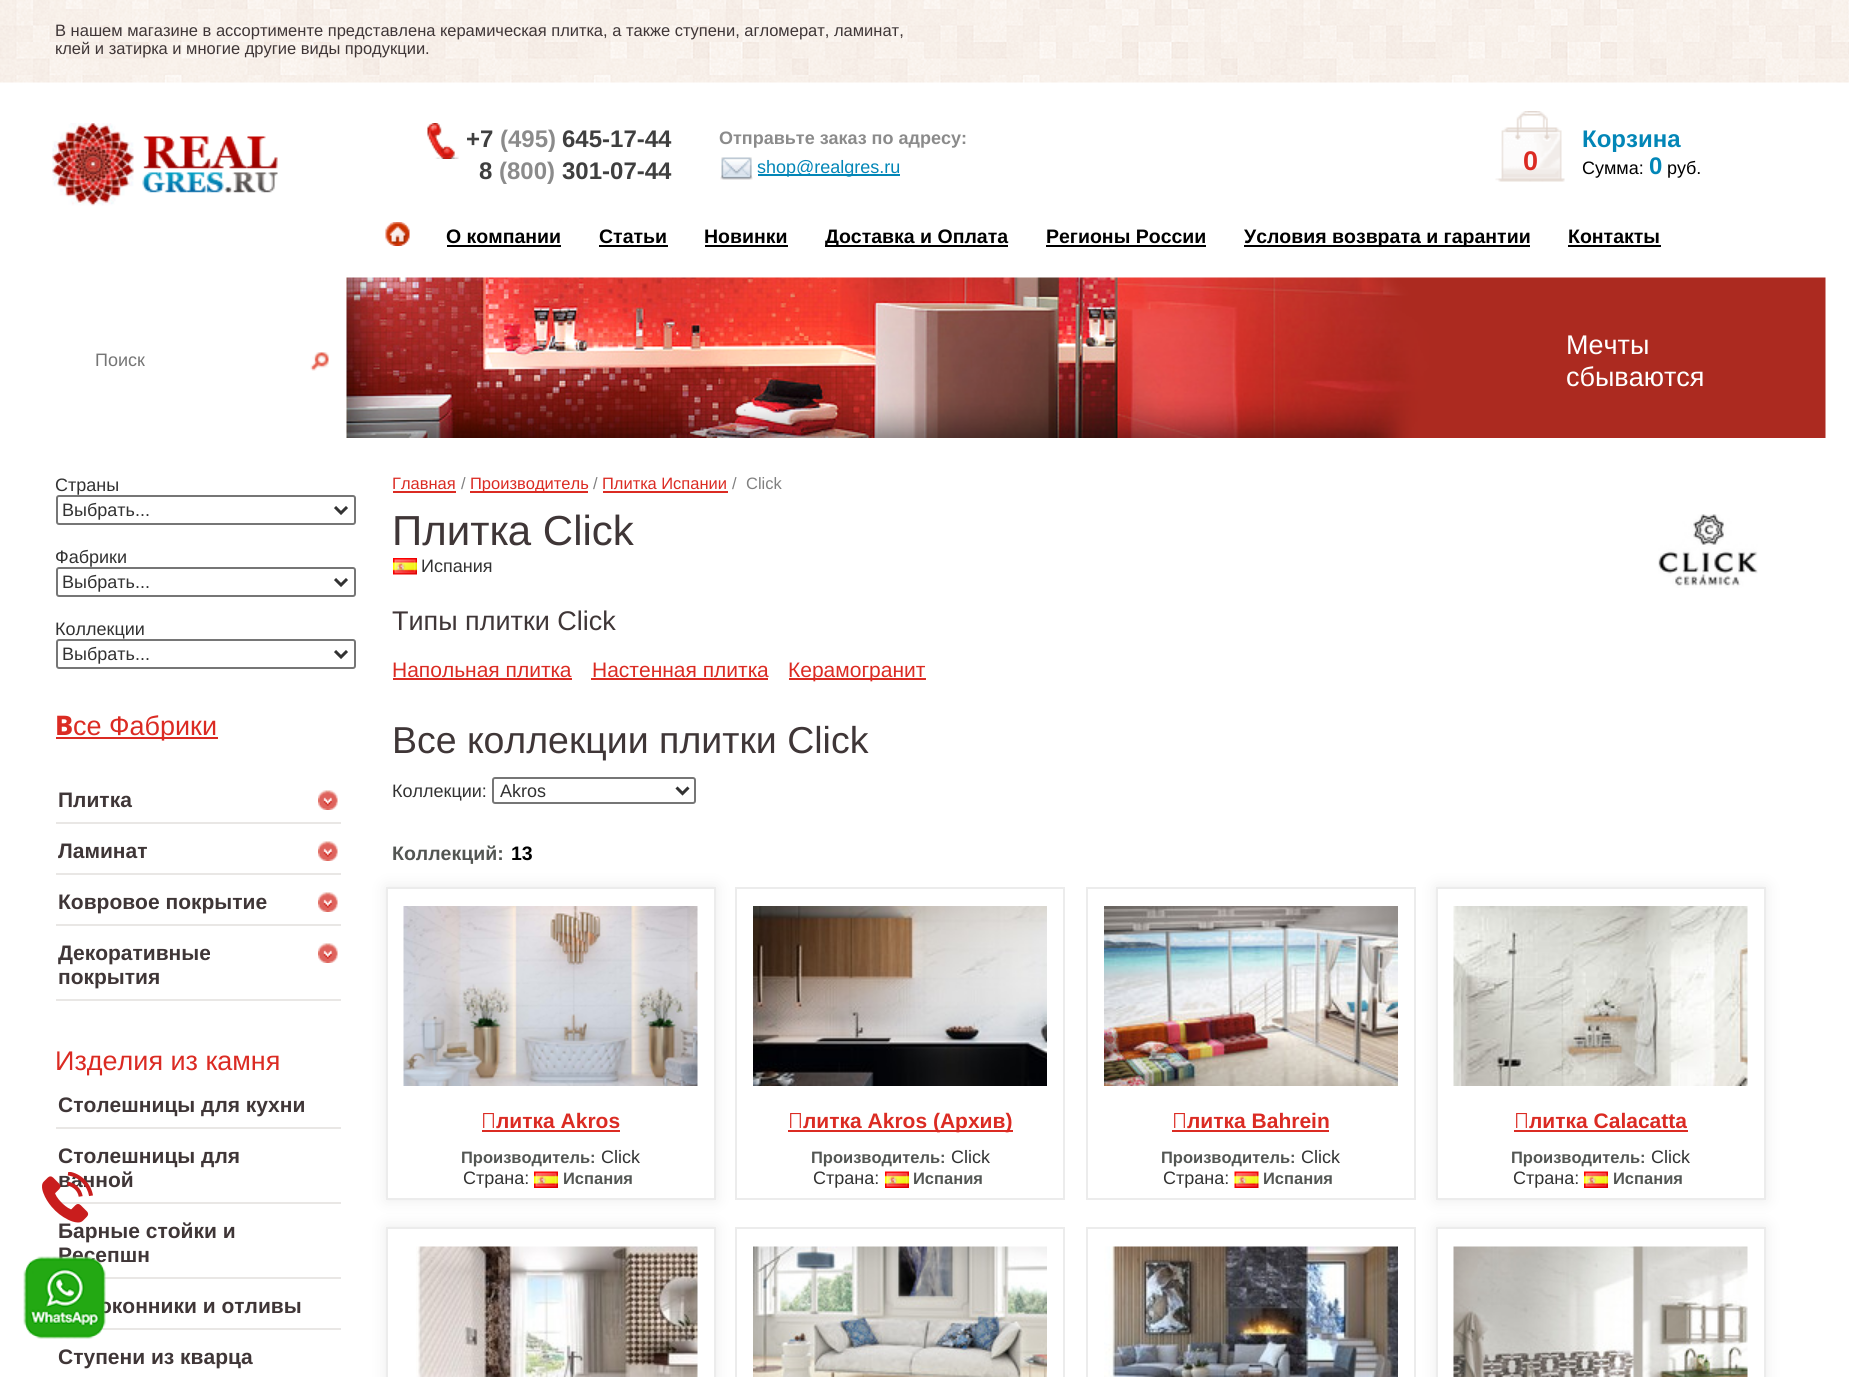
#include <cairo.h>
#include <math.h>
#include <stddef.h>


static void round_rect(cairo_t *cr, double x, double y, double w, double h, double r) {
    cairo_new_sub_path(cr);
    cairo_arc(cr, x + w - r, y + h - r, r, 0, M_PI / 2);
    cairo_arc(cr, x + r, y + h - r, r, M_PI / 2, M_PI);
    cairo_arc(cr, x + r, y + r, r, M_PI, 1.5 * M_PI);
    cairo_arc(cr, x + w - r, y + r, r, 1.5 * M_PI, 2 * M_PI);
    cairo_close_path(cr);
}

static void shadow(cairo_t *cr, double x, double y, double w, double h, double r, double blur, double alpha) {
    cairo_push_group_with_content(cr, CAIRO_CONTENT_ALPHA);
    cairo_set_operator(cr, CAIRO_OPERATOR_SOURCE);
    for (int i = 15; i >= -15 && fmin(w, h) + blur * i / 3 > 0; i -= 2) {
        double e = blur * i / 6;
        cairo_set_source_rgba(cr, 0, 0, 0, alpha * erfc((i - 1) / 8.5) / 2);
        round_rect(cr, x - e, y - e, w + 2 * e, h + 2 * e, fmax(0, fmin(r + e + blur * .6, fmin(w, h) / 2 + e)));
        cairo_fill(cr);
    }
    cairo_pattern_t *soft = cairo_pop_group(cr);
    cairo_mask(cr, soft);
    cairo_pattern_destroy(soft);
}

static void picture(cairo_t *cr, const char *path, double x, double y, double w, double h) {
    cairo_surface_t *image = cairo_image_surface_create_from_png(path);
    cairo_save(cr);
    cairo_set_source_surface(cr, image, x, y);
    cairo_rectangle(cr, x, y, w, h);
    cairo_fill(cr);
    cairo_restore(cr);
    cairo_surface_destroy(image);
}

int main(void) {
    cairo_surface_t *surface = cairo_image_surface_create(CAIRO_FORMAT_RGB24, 1849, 1377);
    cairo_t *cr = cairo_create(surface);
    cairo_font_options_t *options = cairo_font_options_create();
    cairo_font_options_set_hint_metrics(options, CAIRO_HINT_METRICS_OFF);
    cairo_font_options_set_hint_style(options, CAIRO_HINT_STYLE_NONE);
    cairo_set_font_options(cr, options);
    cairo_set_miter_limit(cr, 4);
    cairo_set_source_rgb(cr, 1, 1, 1);
    cairo_paint(cr);
    picture(cr, "img1.png", 0, 0, 1849, 83);
    cairo_select_font_face(cr, "Liberation Sans", CAIRO_FONT_SLANT_NORMAL, CAIRO_FONT_WEIGHT_NORMAL);
    cairo_set_font_size(cr, 16.5);
    cairo_set_source_rgb(cr, 0.247, 0.212, 0.216);
    cairo_move_to(cr, 55, 36);
    cairo_show_text(cr, "В нашем магазине в ассортименте представлена керамическая плитка, а также ступени, агломерат, ламинат,");
    cairo_move_to(cr, 55, 54);
    cairo_show_text(cr, "клей и затирка и многие другие виды продукции.");
    picture(cr, "img2.png", 52, 123, 226, 83);
    picture(cr, "img3.png", 427, 123, 32, 36);
    cairo_select_font_face(cr, "Liberation Sans", CAIRO_FONT_SLANT_NORMAL, CAIRO_FONT_WEIGHT_BOLD);
    cairo_set_font_size(cr, 24);
    cairo_set_source_rgb(cr, 0.247, 0.247, 0.247);
    cairo_move_to(cr, 466, 147);
    cairo_show_text(cr, "+7");
    cairo_set_source_rgb(cr, 0.545, 0.545, 0.545);
    cairo_move_to(cr, 500, 147);
    cairo_show_text(cr, "(495)");
    cairo_set_source_rgb(cr, 0.247, 0.247, 0.247);
    cairo_move_to(cr, 562, 147);
    cairo_show_text(cr, "645-17-44");
    cairo_move_to(cr, 479, 179);
    cairo_show_text(cr, "8");
    cairo_set_source_rgb(cr, 0.545, 0.545, 0.545);
    cairo_move_to(cr, 499, 179);
    cairo_show_text(cr, "(800)");
    cairo_set_source_rgb(cr, 0.247, 0.247, 0.247);
    cairo_move_to(cr, 562, 179);
    cairo_show_text(cr, "301-07-44");
    cairo_set_font_size(cr, 18);
    cairo_set_source_rgb(cr, 0.545, 0.545, 0.545);
    cairo_move_to(cr, 719, 144);
    cairo_show_text(cr, "Отправьте заказ по адресу:");
    picture(cr, "img4.png", 720, 157, 33, 23);
    cairo_set_source_rgb(cr, 0.008, 0.525, 0.718);
    cairo_rectangle(cr, 758, 174, 142, 2);
    cairo_fill(cr);
    cairo_select_font_face(cr, "Liberation Sans", CAIRO_FONT_SLANT_NORMAL, CAIRO_FONT_WEIGHT_NORMAL);
    cairo_move_to(cr, 757, 173);
    cairo_show_text(cr, "shop@realgres.ru");
    picture(cr, "img5.png", 1495, 111, 70, 71);
    cairo_select_font_face(cr, "Liberation Sans", CAIRO_FONT_SLANT_NORMAL, CAIRO_FONT_WEIGHT_BOLD);
    cairo_set_font_size(cr, 24);
    cairo_move_to(cr, 1582, 147);
    cairo_show_text(cr, "Корзина");
    cairo_set_font_size(cr, 27);
    cairo_set_source_rgb(cr, 0.859, 0.169, 0.137);
    cairo_move_to(cr, 1523, 170);
    cairo_show_text(cr, "0");
    cairo_select_font_face(cr, "Liberation Sans", CAIRO_FONT_SLANT_NORMAL, CAIRO_FONT_WEIGHT_NORMAL);
    cairo_set_font_size(cr, 18);
    cairo_set_source_rgb(cr, 0, 0, 0);
    cairo_move_to(cr, 1582, 174);
    cairo_show_text(cr, "Сумма:");
    cairo_select_font_face(cr, "Liberation Sans", CAIRO_FONT_SLANT_NORMAL, CAIRO_FONT_WEIGHT_BOLD);
    cairo_set_font_size(cr, 24);
    cairo_set_source_rgb(cr, 0.008, 0.525, 0.718);
    cairo_move_to(cr, 1649, 174);
    cairo_show_text(cr, "0");
    cairo_select_font_face(cr, "Liberation Sans", CAIRO_FONT_SLANT_NORMAL, CAIRO_FONT_WEIGHT_NORMAL);
    cairo_set_font_size(cr, 18);
    cairo_set_source_rgb(cr, 0, 0, 0);
    cairo_move_to(cr, 1667, 174);
    cairo_show_text(cr, "руб.");
    picture(cr, "img6.png", 385, 222, 25, 24);
    cairo_select_font_face(cr, "Liberation Sans", CAIRO_FONT_SLANT_NORMAL, CAIRO_FONT_WEIGHT_BOLD);
    cairo_set_font_size(cr, 19.5);
    cairo_move_to(cr, 446, 243);
    cairo_show_text(cr, "О компании");
    cairo_rectangle(cr, 447, 245, 114, 2);
    cairo_fill(cr);
    cairo_move_to(cr, 599, 243);
    cairo_show_text(cr, "Статьи");
    cairo_rectangle(cr, 599, 245, 69, 2);
    cairo_fill(cr);
    cairo_move_to(cr, 704, 243);
    cairo_show_text(cr, "Новинки");
    cairo_rectangle(cr, 705, 245, 83, 2);
    cairo_fill(cr);
    cairo_rectangle(cr, 825, 245, 183, 2);
    cairo_fill(cr);
    cairo_move_to(cr, 825, 243);
    cairo_show_text(cr, "Доставка и Оплата");
    cairo_move_to(cr, 1046, 243);
    cairo_show_text(cr, "Регионы России");
    cairo_rectangle(cr, 1046, 245, 160, 2);
    cairo_fill(cr);
    cairo_rectangle(cr, 1244, 245, 286, 2);
    cairo_fill(cr);
    cairo_move_to(cr, 1244, 243);
    cairo_show_text(cr, "Условия возврата и гарантии");
    cairo_move_to(cr, 1568, 243);
    cairo_show_text(cr, "Контакты");
    cairo_rectangle(cr, 1568, 245, 93, 2);
    cairo_fill(cr);
    picture(cr, "img7.png", 346, 277, 1480, 161);
    cairo_select_font_face(cr, "Liberation Sans", CAIRO_FONT_SLANT_NORMAL, CAIRO_FONT_WEIGHT_NORMAL);
    cairo_set_font_size(cr, 18);
    cairo_set_source_rgb(cr, 0.459, 0.459, 0.459);
    cairo_move_to(cr, 95, 366);
    cairo_show_text(cr, "Поиск");
    picture(cr, "img8.png", 310, 352, 19, 19);
    cairo_set_font_size(cr, 27);
    cairo_set_source_rgb(cr, 1, 1, 1);
    cairo_move_to(cr, 1566, 354);
    cairo_show_text(cr, "Мечты");
    cairo_move_to(cr, 1566, 386);
    cairo_show_text(cr, "сбываются");
    cairo_set_font_size(cr, 18);
    cairo_set_source_rgb(cr, 0.196, 0.196, 0.196);
    cairo_move_to(cr, 55, 491);
    cairo_show_text(cr, "Страны");
    round_rect(cr, 57, 496, 298, 28, 2);
    cairo_set_source_rgb(cr, 0.463, 0.463, 0.463);
    cairo_stroke(cr);
    cairo_new_path(cr);
    cairo_move_to(cr, 335, 507);
    cairo_line_to(cr, 341, 513);
    cairo_line_to(cr, 347, 507);
    cairo_set_source_rgb(cr, 0.196, 0.196, 0.196);
    cairo_set_line_width(cr, 3);
    cairo_stroke(cr);
    cairo_move_to(cr, 62, 516);
    cairo_show_text(cr, "Выбрать...");
    cairo_move_to(cr, 55, 563);
    cairo_show_text(cr, "Фабрики");
    round_rect(cr, 57, 568, 298, 28, 2);
    cairo_set_source_rgb(cr, 0.463, 0.463, 0.463);
    cairo_set_line_width(cr, 2);
    cairo_stroke(cr);
    cairo_new_path(cr);
    cairo_move_to(cr, 335, 579);
    cairo_line_to(cr, 341, 585);
    cairo_line_to(cr, 347, 579);
    cairo_set_source_rgb(cr, 0.196, 0.196, 0.196);
    cairo_set_line_width(cr, 3);
    cairo_stroke(cr);
    cairo_move_to(cr, 62, 588);
    cairo_show_text(cr, "Выбрать...");
    cairo_move_to(cr, 55, 635);
    cairo_show_text(cr, "Коллекции");
    round_rect(cr, 57, 640, 298, 28, 2);
    cairo_set_source_rgb(cr, 0.463, 0.463, 0.463);
    cairo_set_line_width(cr, 2);
    cairo_stroke(cr);
    cairo_new_path(cr);
    cairo_move_to(cr, 335, 651);
    cairo_line_to(cr, 341, 657);
    cairo_line_to(cr, 347, 651);
    cairo_set_source_rgb(cr, 0.196, 0.196, 0.196);
    cairo_set_line_width(cr, 3);
    cairo_stroke(cr);
    cairo_move_to(cr, 62, 660);
    cairo_show_text(cr, "Выбрать...");
    cairo_select_font_face(cr, "Noto Sans ExtraBold", CAIRO_FONT_SLANT_NORMAL, CAIRO_FONT_WEIGHT_NORMAL);
    cairo_set_font_size(cr, 27);
    cairo_set_source_rgb(cr, 0.859, 0.169, 0.137);
    cairo_move_to(cr, 55, 735);
    cairo_show_text(cr, "В");
    cairo_rectangle(cr, 56, 737, 162, 2);
    cairo_fill(cr);
    cairo_select_font_face(cr, "Liberation Sans", CAIRO_FONT_SLANT_NORMAL, CAIRO_FONT_WEIGHT_NORMAL);
    cairo_move_to(cr, 73, 735);
    cairo_show_text(cr, "се Фабрики");
    cairo_set_source_rgb(cr, 0.914, 0.906, 0.898);
    cairo_rectangle(cr, 56, 822, 285, 2);
    cairo_fill(cr);
    cairo_select_font_face(cr, "Liberation Sans", CAIRO_FONT_SLANT_NORMAL, CAIRO_FONT_WEIGHT_BOLD);
    cairo_set_font_size(cr, 21);
    cairo_set_source_rgb(cr, 0.247, 0.212, 0.216);
    cairo_move_to(cr, 58, 807);
    cairo_show_text(cr, "Плитка");
    picture(cr, "img9.png", 318, 790, 20, 20);
    cairo_set_source_rgb(cr, 0.914, 0.906, 0.898);
    cairo_rectangle(cr, 56, 873, 285, 2);
    cairo_fill(cr);
    cairo_set_source_rgb(cr, 0.247, 0.212, 0.216);
    cairo_move_to(cr, 58, 858);
    cairo_show_text(cr, "Ламинат");
    picture(cr, "img9.png", 318, 841, 20, 20);
    cairo_set_source_rgb(cr, 0.914, 0.906, 0.898);
    cairo_rectangle(cr, 56, 924, 285, 2);
    cairo_fill(cr);
    cairo_set_source_rgb(cr, 0.247, 0.212, 0.216);
    cairo_move_to(cr, 58, 909);
    cairo_show_text(cr, "Ковровое покрытие");
    picture(cr, "img9.png", 318, 892, 20, 20);
    cairo_set_source_rgb(cr, 0.914, 0.906, 0.898);
    cairo_rectangle(cr, 56, 999, 285, 2);
    cairo_fill(cr);
    cairo_set_source_rgb(cr, 0.247, 0.212, 0.216);
    cairo_move_to(cr, 58, 960);
    cairo_show_text(cr, "Декоративные");
    cairo_move_to(cr, 58, 984);
    cairo_show_text(cr, "покрытия");
    picture(cr, "img9.png", 318, 943, 20, 20);
    cairo_select_font_face(cr, "Liberation Sans", CAIRO_FONT_SLANT_NORMAL, CAIRO_FONT_WEIGHT_NORMAL);
    cairo_set_font_size(cr, 27);
    cairo_set_source_rgb(cr, 0.859, 0.169, 0.137);
    cairo_move_to(cr, 55, 1070);
    cairo_show_text(cr, "Изделия из камня");
    cairo_set_source_rgb(cr, 0.914, 0.906, 0.898);
    cairo_rectangle(cr, 56, 1127, 285, 2);
    cairo_fill(cr);
    cairo_select_font_face(cr, "Liberation Sans", CAIRO_FONT_SLANT_NORMAL, CAIRO_FONT_WEIGHT_BOLD);
    cairo_set_font_size(cr, 21);
    cairo_set_source_rgb(cr, 0.247, 0.212, 0.216);
    cairo_move_to(cr, 58, 1112);
    cairo_show_text(cr, "Столешницы для кухни");
    cairo_set_source_rgb(cr, 0.914, 0.906, 0.898);
    cairo_rectangle(cr, 56, 1202, 285, 2);
    cairo_fill(cr);
    cairo_set_source_rgb(cr, 0.247, 0.212, 0.216);
    cairo_move_to(cr, 58, 1163);
    cairo_show_text(cr, "Столешницы для");
    cairo_move_to(cr, 58, 1187);
    cairo_show_text(cr, "ванной");
    cairo_set_source_rgb(cr, 0.914, 0.906, 0.898);
    cairo_rectangle(cr, 104, 1277, 237, 2);
    cairo_fill(cr);
    cairo_set_source_rgb(cr, 0.247, 0.212, 0.216);
    cairo_move_to(cr, 58, 1238);
    cairo_show_text(cr, "Барные стойки и");
    cairo_move_to(cr, 58, 1262);
    cairo_show_text(cr, "Ресепшн");
    cairo_set_source_rgb(cr, 0.914, 0.906, 0.898);
    cairo_rectangle(cr, 100, 1328, 241, 2);
    cairo_fill(cr);
    cairo_set_source_rgb(cr, 0.247, 0.212, 0.216);
    cairo_move_to(cr, 99, 1313);
    cairo_show_text(cr, "оконники и отливы");
    cairo_move_to(cr, 58, 1364);
    cairo_show_text(cr, "Ступени из кварца");
    cairo_select_font_face(cr, "Liberation Sans", CAIRO_FONT_SLANT_NORMAL, CAIRO_FONT_WEIGHT_NORMAL);
    cairo_set_font_size(cr, 16.5);
    cairo_set_source_rgb(cr, 0.859, 0.169, 0.137);
    cairo_move_to(cr, 392, 489);
    cairo_show_text(cr, "Главная");
    cairo_rectangle(cr, 393, 491, 63, 2);
    cairo_fill(cr);
    cairo_set_source_rgb(cr, 0.502, 0.502, 0.502);
    cairo_move_to(cr, 461, 489);
    cairo_show_text(cr, "/");
    cairo_set_source_rgb(cr, 0.859, 0.169, 0.137);
    cairo_rectangle(cr, 470, 491, 118, 2);
    cairo_fill(cr);
    cairo_move_to(cr, 470, 489);
    cairo_show_text(cr, "Производитель");
    cairo_set_source_rgb(cr, 0.502, 0.502, 0.502);
    cairo_move_to(cr, 593, 489);
    cairo_show_text(cr, "/");
    cairo_set_source_rgb(cr, 0.859, 0.169, 0.137);
    cairo_move_to(cr, 602, 489);
    cairo_show_text(cr, "Плитка Испании");
    cairo_rectangle(cr, 603, 491, 125, 2);
    cairo_fill(cr);
    cairo_set_source_rgb(cr, 0.502, 0.502, 0.502);
    cairo_move_to(cr, 732, 489);
    cairo_show_text(cr, "/");
    cairo_move_to(cr, 746, 489);
    cairo_show_text(cr, "Click");
    cairo_set_font_size(cr, 42);
    cairo_set_source_rgb(cr, 0.247, 0.212, 0.216);
    cairo_move_to(cr, 392, 545);
    cairo_show_text(cr, "Плитка Click");
    picture(cr, "img10.png", 1658, 514, 100, 74);
    picture(cr, "img11.png", 393, 558, 24, 17);
    cairo_set_font_size(cr, 18);
    cairo_set_source_rgb(cr, 0.196, 0.196, 0.196);
    cairo_move_to(cr, 421, 572);
    cairo_show_text(cr, "Испания");
    cairo_set_font_size(cr, 27);
    cairo_set_source_rgb(cr, 0.247, 0.212, 0.216);
    cairo_move_to(cr, 392, 630);
    cairo_show_text(cr, "Типы плитки Click");
    cairo_set_font_size(cr, 21);
    cairo_set_source_rgb(cr, 0.859, 0.169, 0.137);
    cairo_move_to(cr, 392, 677);
    cairo_show_text(cr, "Напольная плитка");
    cairo_rectangle(cr, 393, 678, 179, 2);
    cairo_fill(cr);
    cairo_move_to(cr, 592, 677);
    cairo_show_text(cr, "Настенная плитка");
    cairo_rectangle(cr, 591, 678, 177, 2);
    cairo_fill(cr);
    cairo_rectangle(cr, 789, 678, 137, 2);
    cairo_fill(cr);
    cairo_move_to(cr, 788, 677);
    cairo_show_text(cr, "Керамогранит");
    cairo_set_font_size(cr, 37.5);
    cairo_set_source_rgb(cr, 0.247, 0.212, 0.216);
    cairo_move_to(cr, 392, 753);
    cairo_show_text(cr, "Все коллекции плитки Click");
    cairo_set_font_size(cr, 18);
    cairo_set_source_rgb(cr, 0.196, 0.196, 0.196);
    cairo_move_to(cr, 392, 797);
    cairo_show_text(cr, "Коллекции:");
    round_rect(cr, 493, 778, 202, 25, 2);
    cairo_set_source_rgb(cr, 0.463, 0.463, 0.463);
    cairo_set_line_width(cr, 2);
    cairo_stroke(cr);
    cairo_new_path(cr);
    cairo_move_to(cr, 676.5, 787.5);
    cairo_line_to(cr, 682.5, 793.5);
    cairo_line_to(cr, 688.5, 787.5);
    cairo_set_source_rgb(cr, 0.196, 0.196, 0.196);
    cairo_set_line_width(cr, 3);
    cairo_stroke(cr);
    cairo_move_to(cr, 500, 797);
    cairo_show_text(cr, "Akros");
    cairo_select_font_face(cr, "Liberation Sans", CAIRO_FONT_SLANT_NORMAL, CAIRO_FONT_WEIGHT_BOLD);
    cairo_set_font_size(cr, 19.5);
    cairo_set_source_rgb(cr, 0.325, 0.337, 0.325);
    cairo_move_to(cr, 392, 860);
    cairo_show_text(cr, "Коллекций:");
    cairo_set_source_rgb(cr, 0, 0, 0);
    cairo_move_to(cr, 511, 860);
    cairo_show_text(cr, "13");
    cairo_set_source_rgb(cr, 0.925, 0.925, 0.925);
    shadow(cr, 386, 887, 330, 313, 0, 7.5, 1);
    cairo_set_source_rgb(cr, 1, 1, 1);
    cairo_rectangle(cr, 387, 888, 328, 311);
    cairo_fill_preserve(cr);
    cairo_set_source_rgb(cr, 0.925, 0.925, 0.925);
    cairo_set_line_width(cr, 2);
    cairo_stroke(cr);
    picture(cr, "img12.png", 403, 906, 295, 180);
    cairo_select_font_face(cr, "Noto Sans Light", CAIRO_FONT_SLANT_NORMAL, CAIRO_FONT_WEIGHT_NORMAL);
    cairo_set_font_size(cr, 21);
    cairo_set_source_rgb(cr, 0.859, 0.169, 0.137);
    cairo_move_to(cr, 481, 1128);
    cairo_show_text(cr, "П");
    cairo_rectangle(cr, 482, 1130, 138, 2);
    cairo_fill(cr);
    cairo_select_font_face(cr, "Liberation Sans", CAIRO_FONT_SLANT_NORMAL, CAIRO_FONT_WEIGHT_BOLD);
    cairo_move_to(cr, 496, 1128);
    cairo_show_text(cr, "литка Akros");
    cairo_set_font_size(cr, 16.5);
    cairo_set_source_rgb(cr, 0.325, 0.337, 0.325);
    cairo_move_to(cr, 461, 1163);
    cairo_show_text(cr, "Производитель:");
    cairo_select_font_face(cr, "Liberation Sans", CAIRO_FONT_SLANT_NORMAL, CAIRO_FONT_WEIGHT_NORMAL);
    cairo_set_font_size(cr, 18);
    cairo_set_source_rgb(cr, 0.196, 0.196, 0.196);
    cairo_move_to(cr, 601, 1163);
    cairo_show_text(cr, "Click");
    cairo_move_to(cr, 463, 1184);
    cairo_show_text(cr, "Страна:");
    picture(cr, "img13.png", 534, 1171, 24, 17);
    cairo_select_font_face(cr, "Liberation Sans", CAIRO_FONT_SLANT_NORMAL, CAIRO_FONT_WEIGHT_BOLD);
    cairo_set_font_size(cr, 16.5);
    cairo_set_source_rgb(cr, 0.325, 0.337, 0.325);
    cairo_move_to(cr, 563, 1184);
    cairo_show_text(cr, "Испания");
    cairo_rectangle(cr, 736, 888, 328, 311);
    cairo_set_source_rgb(cr, 0.925, 0.925, 0.925);
    cairo_stroke(cr);
    picture(cr, "img14.png", 753, 906, 294, 180);
    cairo_select_font_face(cr, "Noto Sans Light", CAIRO_FONT_SLANT_NORMAL, CAIRO_FONT_WEIGHT_NORMAL);
    cairo_set_font_size(cr, 21);
    cairo_set_source_rgb(cr, 0.859, 0.169, 0.137);
    cairo_move_to(cr, 788, 1128);
    cairo_show_text(cr, "П");
    cairo_rectangle(cr, 788, 1130, 225, 2);
    cairo_fill(cr);
    cairo_select_font_face(cr, "Liberation Sans", CAIRO_FONT_SLANT_NORMAL, CAIRO_FONT_WEIGHT_BOLD);
    cairo_move_to(cr, 803, 1128);
    cairo_show_text(cr, "литка Akros (Архив)");
    cairo_set_font_size(cr, 16.5);
    cairo_set_source_rgb(cr, 0.325, 0.337, 0.325);
    cairo_move_to(cr, 811, 1163);
    cairo_show_text(cr, "Производитель:");
    cairo_select_font_face(cr, "Liberation Sans", CAIRO_FONT_SLANT_NORMAL, CAIRO_FONT_WEIGHT_NORMAL);
    cairo_set_font_size(cr, 18);
    cairo_set_source_rgb(cr, 0.196, 0.196, 0.196);
    cairo_move_to(cr, 951, 1163);
    cairo_show_text(cr, "Click");
    cairo_move_to(cr, 813, 1184);
    cairo_show_text(cr, "Страна:");
    picture(cr, "img13.png", 885, 1171, 24, 17);
    cairo_select_font_face(cr, "Liberation Sans", CAIRO_FONT_SLANT_NORMAL, CAIRO_FONT_WEIGHT_BOLD);
    cairo_set_font_size(cr, 16.5);
    cairo_set_source_rgb(cr, 0.325, 0.337, 0.325);
    cairo_move_to(cr, 913, 1184);
    cairo_show_text(cr, "Испания");
    cairo_rectangle(cr, 1087, 888, 328, 311);
    cairo_set_source_rgb(cr, 0.925, 0.925, 0.925);
    cairo_stroke(cr);
    picture(cr, "img15.png", 1104, 906, 294, 180);
    cairo_select_font_face(cr, "Noto Sans Light", CAIRO_FONT_SLANT_NORMAL, CAIRO_FONT_WEIGHT_NORMAL);
    cairo_set_font_size(cr, 21);
    cairo_set_source_rgb(cr, 0.859, 0.169, 0.137);
    cairo_move_to(cr, 1172, 1128);
    cairo_show_text(cr, "П");
    cairo_rectangle(cr, 1172, 1130, 157, 2);
    cairo_fill(cr);
    cairo_select_font_face(cr, "Liberation Sans", CAIRO_FONT_SLANT_NORMAL, CAIRO_FONT_WEIGHT_BOLD);
    cairo_move_to(cr, 1187, 1128);
    cairo_show_text(cr, "литка Bahrein");
    cairo_set_font_size(cr, 16.5);
    cairo_set_source_rgb(cr, 0.325, 0.337, 0.325);
    cairo_move_to(cr, 1161, 1163);
    cairo_show_text(cr, "Производитель:");
    cairo_select_font_face(cr, "Liberation Sans", CAIRO_FONT_SLANT_NORMAL, CAIRO_FONT_WEIGHT_NORMAL);
    cairo_set_font_size(cr, 18);
    cairo_set_source_rgb(cr, 0.196, 0.196, 0.196);
    cairo_move_to(cr, 1301, 1163);
    cairo_show_text(cr, "Click");
    cairo_move_to(cr, 1163, 1184);
    cairo_show_text(cr, "Страна:");
    picture(cr, "img16.png", 1234, 1171, 25, 17);
    cairo_select_font_face(cr, "Liberation Sans", CAIRO_FONT_SLANT_NORMAL, CAIRO_FONT_WEIGHT_BOLD);
    cairo_set_font_size(cr, 16.5);
    cairo_set_source_rgb(cr, 0.325, 0.337, 0.325);
    cairo_move_to(cr, 1263, 1184);
    cairo_show_text(cr, "Испания");
    cairo_set_source_rgb(cr, 0.925, 0.925, 0.925);
    shadow(cr, 1436, 887, 330, 313, 0, 7.5, 1);
    cairo_set_source_rgb(cr, 1, 1, 1);
    cairo_rectangle(cr, 1437, 888, 328, 311);
    cairo_fill_preserve(cr);
    cairo_set_source_rgb(cr, 0.925, 0.925, 0.925);
    cairo_stroke(cr);
    picture(cr, "img17.png", 1453, 906, 295, 180);
    cairo_select_font_face(cr, "Noto Sans Light", CAIRO_FONT_SLANT_NORMAL, CAIRO_FONT_WEIGHT_NORMAL);
    cairo_set_font_size(cr, 21);
    cairo_set_source_rgb(cr, 0.859, 0.169, 0.137);
    cairo_move_to(cr, 1514, 1128);
    cairo_show_text(cr, "П");
    cairo_rectangle(cr, 1514, 1130, 174, 2);
    cairo_fill(cr);
    cairo_select_font_face(cr, "Liberation Sans", CAIRO_FONT_SLANT_NORMAL, CAIRO_FONT_WEIGHT_BOLD);
    cairo_move_to(cr, 1529, 1128);
    cairo_show_text(cr, "литка Calacatta");
    cairo_set_font_size(cr, 16.5);
    cairo_set_source_rgb(cr, 0.325, 0.337, 0.325);
    cairo_move_to(cr, 1511, 1163);
    cairo_show_text(cr, "Производитель:");
    cairo_select_font_face(cr, "Liberation Sans", CAIRO_FONT_SLANT_NORMAL, CAIRO_FONT_WEIGHT_NORMAL);
    cairo_set_font_size(cr, 18);
    cairo_set_source_rgb(cr, 0.196, 0.196, 0.196);
    cairo_move_to(cr, 1651, 1163);
    cairo_show_text(cr, "Click");
    cairo_move_to(cr, 1513, 1184);
    cairo_show_text(cr, "Страна:");
    picture(cr, "img13.png", 1584, 1171, 24, 17);
    cairo_select_font_face(cr, "Liberation Sans", CAIRO_FONT_SLANT_NORMAL, CAIRO_FONT_WEIGHT_BOLD);
    cairo_set_font_size(cr, 16.5);
    cairo_set_source_rgb(cr, 0.325, 0.337, 0.325);
    cairo_move_to(cr, 1613, 1184);
    cairo_show_text(cr, "Испания");
    cairo_set_source_rgb(cr, 0.925, 0.925, 0.925);
    shadow(cr, 386, 1227, 330, 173, 0, 7.5, 1);
    cairo_set_source_rgb(cr, 1, 1, 1);
    cairo_rectangle(cr, 387, 1228, 328, 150);
    cairo_fill_preserve(cr);
    cairo_set_source_rgb(cr, 0.925, 0.925, 0.925);
    cairo_stroke(cr);
    picture(cr, "img18.png", 416, 1246, 282, 131);
    cairo_rectangle(cr, 736, 1228, 328, 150);
    cairo_stroke(cr);
    picture(cr, "img19.png", 753, 1246, 294, 131);
    cairo_rectangle(cr, 1087, 1228, 328, 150);
    cairo_stroke(cr);
    picture(cr, "img20.png", 1104, 1246, 294, 131);
    cairo_set_source_rgb(cr, 0.925, 0.925, 0.925);
    shadow(cr, 1436, 1227, 330, 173, 0, 7.5, 1);
    cairo_set_source_rgb(cr, 1, 1, 1);
    cairo_rectangle(cr, 1437, 1228, 328, 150);
    cairo_fill_preserve(cr);
    cairo_set_source_rgb(cr, 0.925, 0.925, 0.925);
    cairo_stroke(cr);
    picture(cr, "img21.png", 1453, 1246, 295, 131);
    picture(cr, "img22.png", 42, 1172, 51, 51);
    picture(cr, "img23.png", 23, 1256, 83, 83);
    cairo_surface_write_to_png(surface, "page.png");
    cairo_font_options_destroy(options);
    cairo_destroy(cr);
    cairo_surface_destroy(surface);
    return 0;
}
